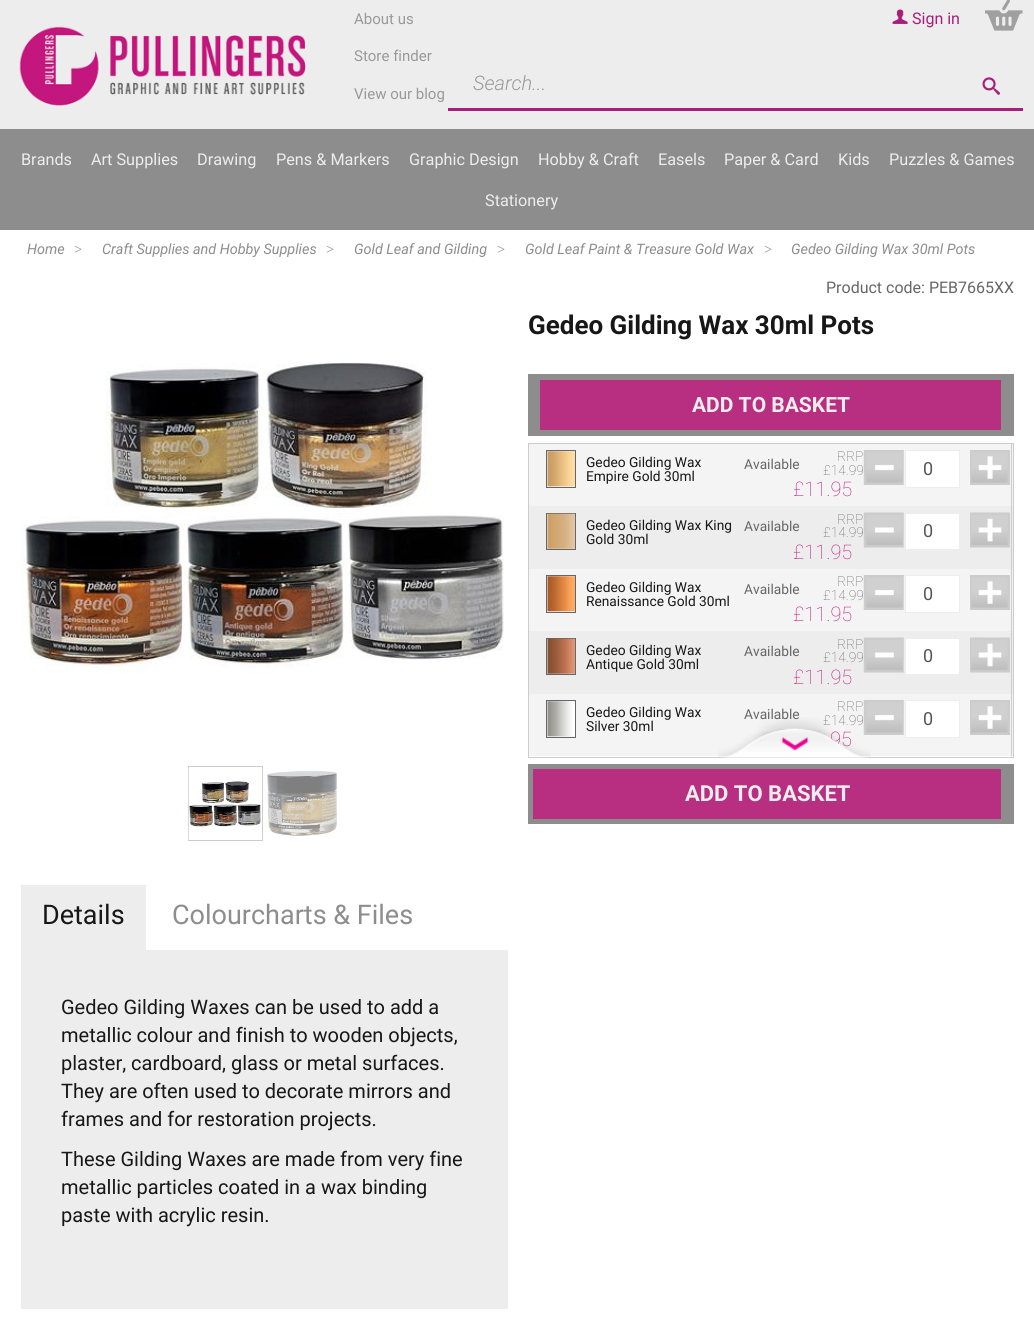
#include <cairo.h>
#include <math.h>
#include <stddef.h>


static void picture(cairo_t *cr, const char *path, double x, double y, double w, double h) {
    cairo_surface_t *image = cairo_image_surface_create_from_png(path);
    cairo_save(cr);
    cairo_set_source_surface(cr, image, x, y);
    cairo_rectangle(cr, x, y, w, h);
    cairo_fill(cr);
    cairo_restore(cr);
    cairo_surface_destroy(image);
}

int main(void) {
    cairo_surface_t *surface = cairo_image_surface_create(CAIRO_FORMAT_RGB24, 1034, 1328);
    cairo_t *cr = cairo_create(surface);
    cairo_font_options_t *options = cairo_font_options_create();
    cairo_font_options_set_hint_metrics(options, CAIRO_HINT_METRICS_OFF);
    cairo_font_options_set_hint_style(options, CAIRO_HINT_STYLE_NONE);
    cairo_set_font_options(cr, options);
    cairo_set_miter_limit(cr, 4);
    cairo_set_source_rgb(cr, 1, 1, 1);
    cairo_paint(cr);
    cairo_set_source_rgb(cr, 0.929, 0.929, 0.929);
    cairo_rectangle(cr, 0, 0, 1034, 129);
    cairo_fill(cr);
    picture(cr, "img1.png", 19, 26, 287, 80);
    cairo_select_font_face(cr, "Roboto", CAIRO_FONT_SLANT_NORMAL, CAIRO_FONT_WEIGHT_NORMAL);
    cairo_set_font_size(cr, 15);
    cairo_set_source_rgb(cr, 0.6, 0.6, 0.6);
    cairo_move_to(cr, 354, 24);
    cairo_show_text(cr, "About us");
    cairo_move_to(cr, 354, 61);
    cairo_show_text(cr, "Store finder");
    cairo_move_to(cr, 354, 99);
    cairo_show_text(cr, "View our blog");
    picture(cr, "img2.png", 892, 9, 16, 15);
    cairo_set_font_size(cr, 16);
    cairo_set_source_rgb(cr, 0.663, 0.118, 0.482);
    cairo_move_to(cr, 912, 24);
    cairo_show_text(cr, "Sign in");
    picture(cr, "img3.png", 985, 0, 38, 31);
    cairo_rectangle(cr, 448, 108, 575, 3);
    cairo_fill(cr);
    cairo_select_font_face(cr, "Roboto Light", CAIRO_FONT_SLANT_ITALIC, CAIRO_FONT_WEIGHT_NORMAL);
    cairo_set_font_size(cr, 20);
    cairo_set_source_rgb(cr, 0.6, 0.6, 0.6);
    cairo_move_to(cr, 473, 90);
    cairo_show_text(cr, "Search...");
    picture(cr, "img4.png", 982, 77, 18, 18);
    cairo_set_source_rgb(cr, 0.553, 0.553, 0.553);
    cairo_rectangle(cr, 0, 129, 1034, 101);
    cairo_fill(cr);
    cairo_select_font_face(cr, "Roboto", CAIRO_FONT_SLANT_NORMAL, CAIRO_FONT_WEIGHT_NORMAL);
    cairo_set_font_size(cr, 16.25);
    cairo_set_source_rgb(cr, 0.929, 0.929, 0.929);
    cairo_move_to(cr, 21, 165);
    cairo_show_text(cr, "Brands");
    cairo_move_to(cr, 91, 165);
    cairo_show_text(cr, "Art Supplies");
    cairo_move_to(cr, 197, 165);
    cairo_show_text(cr, "Drawing");
    cairo_move_to(cr, 276, 165);
    cairo_show_text(cr, "Pens & Markers");
    cairo_move_to(cr, 409, 165);
    cairo_show_text(cr, "Graphic Design");
    cairo_move_to(cr, 538, 165);
    cairo_show_text(cr, "Hobby & Craft");
    cairo_move_to(cr, 658, 165);
    cairo_show_text(cr, "Easels");
    cairo_move_to(cr, 724, 165);
    cairo_show_text(cr, "Paper & Card");
    cairo_move_to(cr, 838, 165);
    cairo_show_text(cr, "Kids");
    cairo_move_to(cr, 889, 165);
    cairo_show_text(cr, "Puzzles & Games");
    cairo_move_to(cr, 485, 206);
    cairo_show_text(cr, "Stationery");
    cairo_select_font_face(cr, "Roboto", CAIRO_FONT_SLANT_ITALIC, CAIRO_FONT_WEIGHT_NORMAL);
    cairo_set_font_size(cr, 14.4);
    cairo_set_source_rgb(cr, 0.553, 0.553, 0.553);
    cairo_move_to(cr, 27, 254);
    cairo_show_text(cr, "Home");
    cairo_select_font_face(cr, "Liberation Serif", CAIRO_FONT_SLANT_NORMAL, CAIRO_FONT_WEIGHT_NORMAL);
    cairo_move_to(cr, 74, 254);
    cairo_show_text(cr, ">");
    cairo_select_font_face(cr, "Roboto", CAIRO_FONT_SLANT_ITALIC, CAIRO_FONT_WEIGHT_NORMAL);
    cairo_move_to(cr, 102, 254);
    cairo_show_text(cr, "Craft Supplies and Hobby Supplies");
    cairo_select_font_face(cr, "Liberation Serif", CAIRO_FONT_SLANT_NORMAL, CAIRO_FONT_WEIGHT_NORMAL);
    cairo_move_to(cr, 326, 254);
    cairo_show_text(cr, ">");
    cairo_select_font_face(cr, "Roboto", CAIRO_FONT_SLANT_ITALIC, CAIRO_FONT_WEIGHT_NORMAL);
    cairo_move_to(cr, 354, 254);
    cairo_show_text(cr, "Gold Leaf and Gilding");
    cairo_select_font_face(cr, "Liberation Serif", CAIRO_FONT_SLANT_NORMAL, CAIRO_FONT_WEIGHT_NORMAL);
    cairo_move_to(cr, 497, 254);
    cairo_show_text(cr, ">");
    cairo_select_font_face(cr, "Roboto", CAIRO_FONT_SLANT_ITALIC, CAIRO_FONT_WEIGHT_NORMAL);
    cairo_move_to(cr, 525, 254);
    cairo_show_text(cr, "Gold Leaf Paint & Treasure Gold Wax");
    cairo_select_font_face(cr, "Liberation Serif", CAIRO_FONT_SLANT_NORMAL, CAIRO_FONT_WEIGHT_NORMAL);
    cairo_move_to(cr, 764, 254);
    cairo_show_text(cr, ">");
    cairo_select_font_face(cr, "Roboto", CAIRO_FONT_SLANT_ITALIC, CAIRO_FONT_WEIGHT_NORMAL);
    cairo_move_to(cr, 791, 254);
    cairo_show_text(cr, "Gedeo Gilding Wax 30ml Pots");
    cairo_select_font_face(cr, "Roboto", CAIRO_FONT_SLANT_NORMAL, CAIRO_FONT_WEIGHT_NORMAL);
    cairo_set_font_size(cr, 16);
    cairo_set_source_rgb(cr, 0.4, 0.4, 0.4);
    cairo_move_to(cr, 826, 293);
    cairo_show_text(cr, "Product code: PEB7665XX");
    cairo_select_font_face(cr, "Roboto", CAIRO_FONT_SLANT_NORMAL, CAIRO_FONT_WEIGHT_BOLD);
    cairo_set_font_size(cr, 26);
    cairo_set_source_rgb(cr, 0.09, 0.09, 0.09);
    cairo_move_to(cr, 528, 334);
    cairo_show_text(cr, "Gedeo Gilding Wax 30ml Pots");
    cairo_set_source_rgb(cr, 0.553, 0.553, 0.553);
    cairo_rectangle(cr, 528, 374, 486, 62);
    cairo_fill(cr);
    cairo_set_source_rgb(cr, 0.722, 0.184, 0.506);
    cairo_rectangle(cr, 540, 380, 461, 50);
    cairo_fill(cr);
    cairo_set_font_size(cr, 21);
    cairo_set_source_rgb(cr, 0.929, 0.929, 0.929);
    cairo_move_to(cr, 692, 412);
    cairo_show_text(cr, "ADD TO BASKET");
    cairo_rectangle(cr, 528.5, 443.5, 485, 314);
    cairo_set_source_rgb(cr, 0.8, 0.8, 0.8);
    cairo_set_line_width(cr, 1);
    cairo_stroke(cr);
    cairo_set_source_rgb(cr, 0.957, 0.957, 0.957);
    cairo_rectangle(cr, 529, 444, 484, 62);
    cairo_fill(cr);
    cairo_set_source_rgb(cr, 0.8, 0.8, 0.8);
    cairo_rectangle(cr, 1011, 444, 1, 62);
    cairo_fill(cr);
    cairo_rectangle(cr, 546.5, 450.5, 29, 37);
    cairo_set_source_rgb(cr, 0.4, 0.4, 0.4);
    cairo_stroke(cr);
    picture(cr, "img5.png", 547, 451, 28, 36);
    cairo_select_font_face(cr, "Roboto", CAIRO_FONT_SLANT_NORMAL, CAIRO_FONT_WEIGHT_NORMAL);
    cairo_set_font_size(cr, 13.75);
    cairo_set_source_rgb(cr, 0.09, 0.09, 0.09);
    cairo_move_to(cr, 586, 467);
    cairo_show_text(cr, "Gedeo Gilding Wax");
    cairo_move_to(cr, 586, 481);
    cairo_show_text(cr, "Empire Gold 30ml");
    cairo_set_source_rgb(cr, 0.4, 0.4, 0.4);
    cairo_move_to(cr, 744, 469);
    cairo_show_text(cr, "Available");
    cairo_select_font_face(cr, "Roboto Thin", CAIRO_FONT_SLANT_NORMAL, CAIRO_FONT_WEIGHT_NORMAL);
    cairo_move_to(cr, 837, 461);
    cairo_show_text(cr, "RRP");
    cairo_move_to(cr, 823, 475);
    cairo_show_text(cr, "£14.99");
    cairo_set_font_size(cr, 20);
    cairo_set_source_rgb(cr, 0.765, 0.094, 0.494);
    cairo_move_to(cr, 793, 496);
    cairo_show_text(cr, "£11.95");
    picture(cr, "img6.png", 863, 450, 41, 35);
    cairo_set_source_rgb(cr, 1, 1, 1);
    cairo_rectangle(cr, 905.5, 450.5, 54, 37);
    cairo_fill_preserve(cr);
    cairo_set_source_rgb(cr, 0.929, 0.929, 0.929);
    cairo_stroke(cr);
    cairo_select_font_face(cr, "Roboto", CAIRO_FONT_SLANT_NORMAL, CAIRO_FONT_WEIGHT_NORMAL);
    cairo_set_font_size(cr, 18);
    cairo_set_source_rgb(cr, 0.333, 0.333, 0.333);
    cairo_move_to(cr, 923, 475);
    cairo_show_text(cr, "0");
    picture(cr, "img7.png", 970, 450, 40, 35);
    cairo_set_source_rgb(cr, 0.929, 0.929, 0.929);
    cairo_rectangle(cr, 529, 506, 484, 63);
    cairo_fill(cr);
    cairo_set_source_rgb(cr, 0.8, 0.8, 0.8);
    cairo_rectangle(cr, 1011, 506, 1, 63);
    cairo_fill(cr);
    cairo_rectangle(cr, 546.5, 513.5, 29, 36);
    cairo_set_source_rgb(cr, 0.4, 0.4, 0.4);
    cairo_stroke(cr);
    picture(cr, "img8.png", 547, 513, 28, 36);
    cairo_set_font_size(cr, 13.75);
    cairo_set_source_rgb(cr, 0.09, 0.09, 0.09);
    cairo_move_to(cr, 586, 530);
    cairo_show_text(cr, "Gedeo Gilding Wax King");
    cairo_move_to(cr, 586, 544);
    cairo_show_text(cr, "Gold 30ml");
    cairo_set_source_rgb(cr, 0.4, 0.4, 0.4);
    cairo_move_to(cr, 744, 531);
    cairo_show_text(cr, "Available");
    cairo_select_font_face(cr, "Roboto Thin", CAIRO_FONT_SLANT_NORMAL, CAIRO_FONT_WEIGHT_NORMAL);
    cairo_move_to(cr, 837, 524);
    cairo_show_text(cr, "RRP");
    cairo_move_to(cr, 823, 537);
    cairo_show_text(cr, "£14.99");
    cairo_set_font_size(cr, 20);
    cairo_set_source_rgb(cr, 0.765, 0.094, 0.494);
    cairo_move_to(cr, 793, 559);
    cairo_show_text(cr, "£11.95");
    picture(cr, "img9.png", 863, 512, 41, 36);
    cairo_set_source_rgb(cr, 1, 1, 1);
    cairo_rectangle(cr, 906, 514, 53, 35);
    cairo_fill(cr);
    cairo_select_font_face(cr, "Roboto", CAIRO_FONT_SLANT_NORMAL, CAIRO_FONT_WEIGHT_NORMAL);
    cairo_set_font_size(cr, 18);
    cairo_set_source_rgb(cr, 0.333, 0.333, 0.333);
    cairo_move_to(cr, 923, 537);
    cairo_show_text(cr, "0");
    picture(cr, "img10.png", 970, 512, 40, 36);
    cairo_set_source_rgb(cr, 0.957, 0.957, 0.957);
    cairo_rectangle(cr, 529, 569, 484, 62);
    cairo_fill(cr);
    cairo_set_source_rgb(cr, 0.8, 0.8, 0.8);
    cairo_rectangle(cr, 1011, 569, 1, 62);
    cairo_fill(cr);
    cairo_rectangle(cr, 546.5, 575.5, 29, 37);
    cairo_set_source_rgb(cr, 0.4, 0.4, 0.4);
    cairo_stroke(cr);
    picture(cr, "img11.png", 547, 576, 28, 36);
    cairo_set_font_size(cr, 13.75);
    cairo_set_source_rgb(cr, 0.09, 0.09, 0.09);
    cairo_move_to(cr, 586, 592);
    cairo_show_text(cr, "Gedeo Gilding Wax");
    cairo_move_to(cr, 586, 606);
    cairo_show_text(cr, "Renaissance Gold 30ml");
    cairo_set_source_rgb(cr, 0.4, 0.4, 0.4);
    cairo_move_to(cr, 744, 594);
    cairo_show_text(cr, "Available");
    cairo_select_font_face(cr, "Roboto Thin", CAIRO_FONT_SLANT_NORMAL, CAIRO_FONT_WEIGHT_NORMAL);
    cairo_move_to(cr, 837, 586);
    cairo_show_text(cr, "RRP");
    cairo_move_to(cr, 823, 600);
    cairo_show_text(cr, "£14.99");
    cairo_set_font_size(cr, 20);
    cairo_set_source_rgb(cr, 0.765, 0.094, 0.494);
    cairo_move_to(cr, 793, 621);
    cairo_show_text(cr, "£11.95");
    picture(cr, "img12.png", 863, 575, 41, 35);
    cairo_set_source_rgb(cr, 1, 1, 1);
    cairo_rectangle(cr, 905.5, 575.5, 54, 37);
    cairo_fill_preserve(cr);
    cairo_set_source_rgb(cr, 0.929, 0.929, 0.929);
    cairo_stroke(cr);
    cairo_select_font_face(cr, "Roboto", CAIRO_FONT_SLANT_NORMAL, CAIRO_FONT_WEIGHT_NORMAL);
    cairo_set_font_size(cr, 18);
    cairo_set_source_rgb(cr, 0.333, 0.333, 0.333);
    cairo_move_to(cr, 923, 600);
    cairo_show_text(cr, "0");
    picture(cr, "img13.png", 970, 575, 40, 35);
    cairo_set_source_rgb(cr, 0.929, 0.929, 0.929);
    cairo_rectangle(cr, 529, 631, 484, 63);
    cairo_fill(cr);
    cairo_set_source_rgb(cr, 0.8, 0.8, 0.8);
    cairo_rectangle(cr, 1011, 631, 1, 63);
    cairo_fill(cr);
    cairo_rectangle(cr, 546.5, 638.5, 29, 36);
    cairo_set_source_rgb(cr, 0.4, 0.4, 0.4);
    cairo_stroke(cr);
    picture(cr, "img14.png", 547, 638, 28, 36);
    cairo_set_font_size(cr, 13.75);
    cairo_set_source_rgb(cr, 0.09, 0.09, 0.09);
    cairo_move_to(cr, 586, 655);
    cairo_show_text(cr, "Gedeo Gilding Wax");
    cairo_move_to(cr, 586, 669);
    cairo_show_text(cr, "Antique Gold 30ml");
    cairo_set_source_rgb(cr, 0.4, 0.4, 0.4);
    cairo_move_to(cr, 744, 656);
    cairo_show_text(cr, "Available");
    cairo_select_font_face(cr, "Roboto Thin", CAIRO_FONT_SLANT_NORMAL, CAIRO_FONT_WEIGHT_NORMAL);
    cairo_move_to(cr, 837, 649);
    cairo_show_text(cr, "RRP");
    cairo_move_to(cr, 823, 662);
    cairo_show_text(cr, "£14.99");
    cairo_set_font_size(cr, 20);
    cairo_set_source_rgb(cr, 0.765, 0.094, 0.494);
    cairo_move_to(cr, 793, 684);
    cairo_show_text(cr, "£11.95");
    picture(cr, "img9.png", 863, 637, 41, 36);
    cairo_set_source_rgb(cr, 1, 1, 1);
    cairo_rectangle(cr, 906, 639, 53, 35);
    cairo_fill(cr);
    cairo_select_font_face(cr, "Roboto", CAIRO_FONT_SLANT_NORMAL, CAIRO_FONT_WEIGHT_NORMAL);
    cairo_set_font_size(cr, 18);
    cairo_set_source_rgb(cr, 0.333, 0.333, 0.333);
    cairo_move_to(cr, 923, 662);
    cairo_show_text(cr, "0");
    picture(cr, "img10.png", 970, 637, 40, 36);
    cairo_set_source_rgb(cr, 0.957, 0.957, 0.957);
    cairo_rectangle(cr, 529, 694, 484, 62);
    cairo_fill(cr);
    cairo_set_source_rgb(cr, 0.8, 0.8, 0.8);
    cairo_rectangle(cr, 1011, 694, 1, 62);
    cairo_fill(cr);
    cairo_rectangle(cr, 546.5, 700.5, 29, 37);
    cairo_set_source_rgb(cr, 0.4, 0.4, 0.4);
    cairo_stroke(cr);
    picture(cr, "img15.png", 547, 701, 28, 36);
    cairo_set_font_size(cr, 13.75);
    cairo_set_source_rgb(cr, 0.09, 0.09, 0.09);
    cairo_move_to(cr, 586, 717);
    cairo_show_text(cr, "Gedeo Gilding Wax");
    cairo_move_to(cr, 586, 731);
    cairo_show_text(cr, "Silver 30ml");
    cairo_set_source_rgb(cr, 0.4, 0.4, 0.4);
    cairo_move_to(cr, 744, 719);
    cairo_show_text(cr, "Available");
    cairo_select_font_face(cr, "Roboto Thin", CAIRO_FONT_SLANT_NORMAL, CAIRO_FONT_WEIGHT_NORMAL);
    cairo_move_to(cr, 837, 711);
    cairo_show_text(cr, "RRP");
    cairo_move_to(cr, 823, 725);
    cairo_show_text(cr, "£14.99");
    cairo_set_font_size(cr, 20);
    cairo_set_source_rgb(cr, 0.765, 0.094, 0.494);
    cairo_move_to(cr, 830, 746);
    cairo_show_text(cr, "95");
    picture(cr, "img6.png", 863, 700, 41, 35);
    cairo_set_source_rgb(cr, 1, 1, 1);
    cairo_rectangle(cr, 905.5, 700.5, 54, 37);
    cairo_fill_preserve(cr);
    cairo_set_source_rgb(cr, 0.929, 0.929, 0.929);
    cairo_stroke(cr);
    cairo_select_font_face(cr, "Roboto", CAIRO_FONT_SLANT_NORMAL, CAIRO_FONT_WEIGHT_NORMAL);
    cairo_set_font_size(cr, 18);
    cairo_set_source_rgb(cr, 0.333, 0.333, 0.333);
    cairo_move_to(cr, 923, 725);
    cairo_show_text(cr, "0");
    picture(cr, "img7.png", 970, 700, 40, 35);
    picture(cr, "img16.png", 718, 717, 153, 41);
    cairo_set_source_rgb(cr, 0.553, 0.553, 0.553);
    cairo_rectangle(cr, 528, 764, 486, 60);
    cairo_fill(cr);
    cairo_set_source_rgb(cr, 0.722, 0.184, 0.506);
    cairo_rectangle(cr, 533, 769, 468, 50);
    cairo_fill(cr);
    cairo_select_font_face(cr, "Roboto", CAIRO_FONT_SLANT_NORMAL, CAIRO_FONT_WEIGHT_BOLD);
    cairo_set_font_size(cr, 22);
    cairo_set_source_rgb(cr, 0.929, 0.929, 0.929);
    cairo_move_to(cr, 685, 801);
    cairo_show_text(cr, "ADD TO BASKET");
    picture(cr, "img17.png", 21, 362, 483, 313);
    cairo_rectangle(cr, 188.5, 766.5, 74, 74);
    cairo_set_source_rgb(cr, 0.8, 0.8, 0.8);
    cairo_stroke(cr);
    picture(cr, "img18.png", 188, 767, 73, 73);
    picture(cr, "img19.png", 267, 771, 70, 66);
    cairo_set_source_rgb(cr, 0.929, 0.929, 0.929);
    cairo_rectangle(cr, 21, 885, 125, 65);
    cairo_fill(cr);
    cairo_select_font_face(cr, "Roboto", CAIRO_FONT_SLANT_NORMAL, CAIRO_FONT_WEIGHT_NORMAL);
    cairo_set_font_size(cr, 27);
    cairo_set_source_rgb(cr, 0.09, 0.09, 0.09);
    cairo_move_to(cr, 42, 924);
    cairo_show_text(cr, "Details");
    cairo_set_source_rgb(cr, 0.553, 0.553, 0.553);
    cairo_move_to(cr, 172, 924);
    cairo_show_text(cr, "Colourcharts & Files");
    cairo_set_source_rgb(cr, 0.929, 0.929, 0.929);
    cairo_rectangle(cr, 21, 950, 487, 359);
    cairo_fill(cr);
    cairo_set_font_size(cr, 20);
    cairo_set_source_rgb(cr, 0.09, 0.09, 0.09);
    cairo_move_to(cr, 61, 1014);
    cairo_show_text(cr, "Gedeo Gilding Waxes can be used to add a");
    cairo_move_to(cr, 61, 1042);
    cairo_show_text(cr, "metallic colour and finish to wooden objects,");
    cairo_move_to(cr, 61, 1070);
    cairo_show_text(cr, "plaster, cardboard, glass or metal surfaces.");
    cairo_move_to(cr, 61, 1098);
    cairo_show_text(cr, "They are often used to decorate mirrors and");
    cairo_move_to(cr, 61, 1126);
    cairo_show_text(cr, "frames and for restoration projects.");
    cairo_move_to(cr, 61, 1166);
    cairo_show_text(cr, "These Gilding Waxes are made from very fine");
    cairo_move_to(cr, 61, 1194);
    cairo_show_text(cr, "metallic particles coated in a wax binding");
    cairo_move_to(cr, 61, 1222);
    cairo_show_text(cr, "paste with acrylic resin.");
    cairo_surface_write_to_png(surface, "page.png");
    cairo_font_options_destroy(options);
    cairo_destroy(cr);
    cairo_surface_destroy(surface);
    return 0;
}
